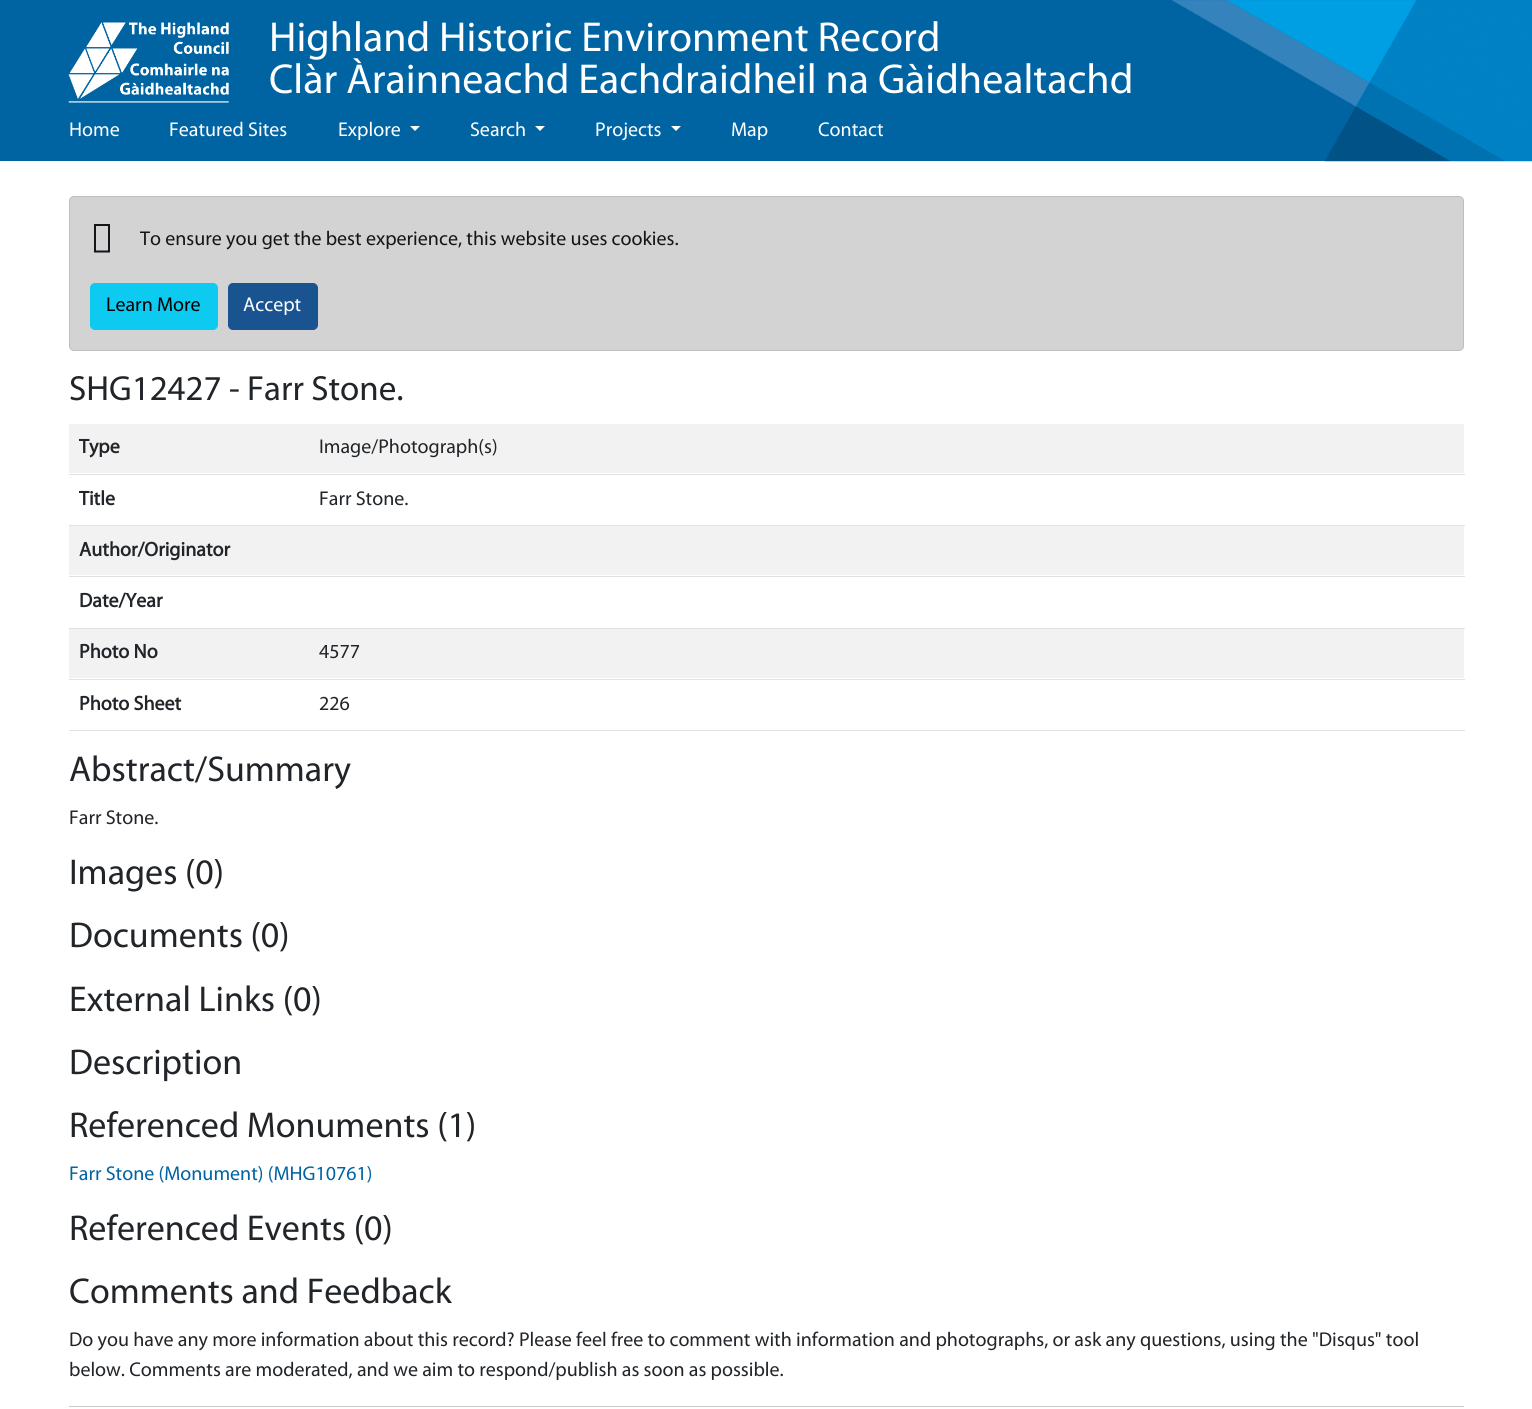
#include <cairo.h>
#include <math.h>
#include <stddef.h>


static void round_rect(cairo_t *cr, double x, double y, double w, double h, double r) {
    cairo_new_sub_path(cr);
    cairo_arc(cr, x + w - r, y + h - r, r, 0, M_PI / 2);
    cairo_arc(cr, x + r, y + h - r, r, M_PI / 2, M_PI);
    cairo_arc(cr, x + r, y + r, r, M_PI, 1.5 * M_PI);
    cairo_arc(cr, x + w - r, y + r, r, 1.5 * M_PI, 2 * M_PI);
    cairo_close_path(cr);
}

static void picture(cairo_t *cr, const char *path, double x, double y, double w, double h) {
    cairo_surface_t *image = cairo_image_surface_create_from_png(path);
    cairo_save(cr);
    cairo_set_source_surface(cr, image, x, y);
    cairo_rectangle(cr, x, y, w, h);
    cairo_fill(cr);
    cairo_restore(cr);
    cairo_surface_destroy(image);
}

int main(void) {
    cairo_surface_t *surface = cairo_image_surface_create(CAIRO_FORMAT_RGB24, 1532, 1409);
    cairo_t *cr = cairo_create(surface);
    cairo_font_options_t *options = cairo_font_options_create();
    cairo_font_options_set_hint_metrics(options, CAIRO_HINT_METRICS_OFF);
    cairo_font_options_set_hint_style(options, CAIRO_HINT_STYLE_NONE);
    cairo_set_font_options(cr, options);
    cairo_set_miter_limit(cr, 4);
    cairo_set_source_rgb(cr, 1, 1, 1);
    cairo_paint(cr);
    cairo_set_source_rgb(cr, 0, 0.392, 0.639);
    cairo_rectangle(cr, 0, 0, 1532, 161);
    cairo_fill(cr);
    picture(cr, "img1.png", 1172, 0, 360, 162);
    picture(cr, "img2.png", 68, 22, 161, 81);
    cairo_select_font_face(cr, "Myriad", CAIRO_FONT_SLANT_NORMAL, CAIRO_FONT_WEIGHT_NORMAL);
    cairo_set_font_size(cr, 42);
    cairo_set_source_rgb(cr, 1, 1, 1);
    cairo_move_to(cr, 269, 51);
    cairo_show_text(cr, "Highland Historic Environment Record");
    cairo_move_to(cr, 269, 93);
    cairo_show_text(cr, "Clàr Àrainneachd Eachdraidheil na Gàidhealtachd");
    cairo_set_font_size(cr, 20);
    cairo_move_to(cr, 69, 136);
    cairo_show_text(cr, "Home");
    cairo_move_to(cr, 169, 136);
    cairo_show_text(cr, "Featured Sites");
    cairo_move_to(cr, 338, 136);
    cairo_show_text(cr, "Explore");
    cairo_new_path(cr);
    cairo_move_to(cr, 410, 126);
    cairo_line_to(cr, 420, 126);
    cairo_line_to(cr, 415, 131);
    cairo_close_path(cr);
    cairo_fill(cr);
    cairo_move_to(cr, 470, 136);
    cairo_show_text(cr, "Search");
    cairo_new_path(cr);
    cairo_move_to(cr, 535, 126);
    cairo_line_to(cr, 545, 126);
    cairo_line_to(cr, 540, 131);
    cairo_close_path(cr);
    cairo_fill(cr);
    cairo_move_to(cr, 595, 136);
    cairo_show_text(cr, "Projects");
    cairo_new_path(cr);
    cairo_move_to(cr, 671, 126);
    cairo_line_to(cr, 681, 126);
    cairo_line_to(cr, 676, 131);
    cairo_close_path(cr);
    cairo_fill(cr);
    cairo_move_to(cr, 731, 136);
    cairo_show_text(cr, "Map");
    cairo_move_to(cr, 818, 136);
    cairo_show_text(cr, "Contact");
    cairo_set_source_rgb(cr, 0.827, 0.827, 0.831);
    round_rect(cr, 69.5, 196.5, 1394, 154, 4.5);
    cairo_fill_preserve(cr);
    cairo_set_source_rgb(cr, 0.737, 0.745, 0.749);
    cairo_set_line_width(cr, 1);
    cairo_stroke(cr);
    cairo_set_source_rgb(cr, 0.078, 0.086, 0.098);
    cairo_new_path(cr);
    cairo_move_to(cr, 94, 252.5);
    cairo_line_to(cr, 94, 224);
    cairo_line_to(cr, 110, 224);
    cairo_line_to(cr, 110, 252.5);
    cairo_close_path(cr);
    cairo_move_to(cr, 96, 250.5);
    cairo_line_to(cr, 108, 250.5);
    cairo_line_to(cr, 108, 226);
    cairo_line_to(cr, 96, 226);
    cairo_close_path(cr);
    cairo_fill(cr);
    cairo_move_to(cr, 140, 245);
    cairo_show_text(cr, "To ensure you get the best experience, this website uses cookies.");
    cairo_set_source_rgb(cr, 0.051, 0.792, 0.941);
    round_rect(cr, 90.5, 283.5, 127, 46, 4.5);
    cairo_fill_preserve(cr);
    cairo_stroke(cr);
    cairo_set_source_rgb(cr, 0, 0, 0);
    cairo_move_to(cr, 106, 311);
    cairo_show_text(cr, "Learn More");
    cairo_set_source_rgb(cr, 0.098, 0.329, 0.569);
    round_rect(cr, 228.5, 283.5, 89, 46, 4.5);
    cairo_fill_preserve(cr);
    cairo_stroke(cr);
    cairo_set_source_rgb(cr, 1, 1, 1);
    cairo_move_to(cr, 243, 311);
    cairo_show_text(cr, "Accept");
    cairo_set_font_size(cr, 35);
    cairo_set_source_rgb(cr, 0.129, 0.145, 0.161);
    cairo_move_to(cr, 69, 400);
    cairo_show_text(cr, "SHG12427 - Farr Stone.");
    cairo_set_source_rgb(cr, 0.949, 0.949, 0.949);
    cairo_rectangle(cr, 69, 424, 1395, 49);
    cairo_fill(cr);
    cairo_select_font_face(cr, "Myriad", CAIRO_FONT_SLANT_NORMAL, CAIRO_FONT_WEIGHT_BOLD);
    cairo_set_font_size(cr, 20);
    cairo_set_source_rgb(cr, 0.129, 0.145, 0.161);
    cairo_move_to(cr, 79, 453);
    cairo_show_text(cr, "Type");
    cairo_set_source_rgb(cr, 0.871, 0.886, 0.902);
    cairo_rectangle(cr, 69, 474, 1396, 1);
    cairo_fill(cr);
    cairo_select_font_face(cr, "Myriad", CAIRO_FONT_SLANT_NORMAL, CAIRO_FONT_WEIGHT_NORMAL);
    cairo_set_source_rgb(cr, 0.129, 0.145, 0.161);
    cairo_move_to(cr, 319, 453);
    cairo_show_text(cr, "Image/Photograph(s)");
    cairo_select_font_face(cr, "Myriad", CAIRO_FONT_SLANT_NORMAL, CAIRO_FONT_WEIGHT_BOLD);
    cairo_move_to(cr, 79, 505);
    cairo_show_text(cr, "Title");
    cairo_set_source_rgb(cr, 0.871, 0.886, 0.902);
    cairo_rectangle(cr, 69, 525, 1396, 1);
    cairo_fill(cr);
    cairo_select_font_face(cr, "Myriad", CAIRO_FONT_SLANT_NORMAL, CAIRO_FONT_WEIGHT_NORMAL);
    cairo_set_source_rgb(cr, 0.129, 0.145, 0.161);
    cairo_move_to(cr, 319, 505);
    cairo_show_text(cr, "Farr Stone.");
    cairo_set_source_rgb(cr, 0.949, 0.949, 0.949);
    cairo_rectangle(cr, 69, 526, 1395, 49);
    cairo_fill(cr);
    cairo_select_font_face(cr, "Myriad", CAIRO_FONT_SLANT_NORMAL, CAIRO_FONT_WEIGHT_BOLD);
    cairo_set_source_rgb(cr, 0.129, 0.145, 0.161);
    cairo_move_to(cr, 79, 556);
    cairo_show_text(cr, "Author/Originator");
    cairo_set_source_rgb(cr, 0.871, 0.886, 0.902);
    cairo_rectangle(cr, 69, 576, 1396, 1);
    cairo_fill(cr);
    cairo_set_source_rgb(cr, 0.129, 0.145, 0.161);
    cairo_move_to(cr, 79, 607);
    cairo_show_text(cr, "Date/Year");
    cairo_set_source_rgb(cr, 0.871, 0.886, 0.902);
    cairo_rectangle(cr, 69, 628, 1396, 1);
    cairo_fill(cr);
    cairo_set_source_rgb(cr, 0.949, 0.949, 0.949);
    cairo_rectangle(cr, 69, 629, 1395, 49);
    cairo_fill(cr);
    cairo_set_source_rgb(cr, 0.129, 0.145, 0.161);
    cairo_move_to(cr, 79, 658);
    cairo_show_text(cr, "Photo No");
    cairo_set_source_rgb(cr, 0.871, 0.886, 0.902);
    cairo_rectangle(cr, 69, 679, 1396, 1);
    cairo_fill(cr);
    cairo_select_font_face(cr, "Myriad", CAIRO_FONT_SLANT_NORMAL, CAIRO_FONT_WEIGHT_NORMAL);
    cairo_set_source_rgb(cr, 0.129, 0.145, 0.161);
    cairo_move_to(cr, 319, 658);
    cairo_show_text(cr, "4577");
    cairo_select_font_face(cr, "Myriad", CAIRO_FONT_SLANT_NORMAL, CAIRO_FONT_WEIGHT_BOLD);
    cairo_move_to(cr, 79, 710);
    cairo_show_text(cr, "Photo Sheet");
    cairo_set_source_rgb(cr, 0.871, 0.886, 0.902);
    cairo_rectangle(cr, 69, 730, 1396, 1);
    cairo_fill(cr);
    cairo_select_font_face(cr, "Myriad", CAIRO_FONT_SLANT_NORMAL, CAIRO_FONT_WEIGHT_NORMAL);
    cairo_set_source_rgb(cr, 0.129, 0.145, 0.161);
    cairo_move_to(cr, 319, 710);
    cairo_show_text(cr, "226");
    cairo_set_font_size(cr, 36);
    cairo_move_to(cr, 69, 781);
    cairo_show_text(cr, "Abstract/Summary");
    cairo_set_font_size(cr, 20);
    cairo_move_to(cr, 69, 824);
    cairo_show_text(cr, "Farr Stone.");
    cairo_set_font_size(cr, 36);
    cairo_move_to(cr, 69, 884);
    cairo_show_text(cr, "Images (0)");
    cairo_move_to(cr, 69, 947);
    cairo_show_text(cr, "Documents (0)");
    cairo_move_to(cr, 69, 1011);
    cairo_show_text(cr, "External Links (0)");
    cairo_move_to(cr, 69, 1074);
    cairo_show_text(cr, "Description");
    cairo_move_to(cr, 69, 1137);
    cairo_show_text(cr, "Referenced Monuments (1)");
    cairo_set_font_size(cr, 20);
    cairo_set_source_rgb(cr, 0, 0.392, 0.639);
    cairo_move_to(cr, 69, 1180);
    cairo_show_text(cr, "Farr Stone (Monument) (MHG10761)");
    cairo_set_font_size(cr, 36);
    cairo_set_source_rgb(cr, 0.129, 0.145, 0.161);
    cairo_move_to(cr, 69, 1240);
    cairo_show_text(cr, "Referenced Events (0)");
    cairo_move_to(cr, 69, 1303);
    cairo_show_text(cr, "Comments and Feedback");
    cairo_set_font_size(cr, 20);
    cairo_move_to(cr, 69, 1346);
    cairo_show_text(cr, "Do you have any more information about this record? Please feel free to comment with information and photographs, or ask any questions, using the \"Disqus\" tool");
    cairo_move_to(cr, 69, 1376);
    cairo_show_text(cr, "below. Comments are moderated, and we aim to respond/publish as soon as possible.");
    cairo_set_source_rgb(cr, 0.784, 0.788, 0.792);
    cairo_rectangle(cr, 69, 1406, 1395, 1);
    cairo_fill(cr);
    cairo_surface_write_to_png(surface, "page.png");
    cairo_font_options_destroy(options);
    cairo_destroy(cr);
    cairo_surface_destroy(surface);
    return 0;
}
